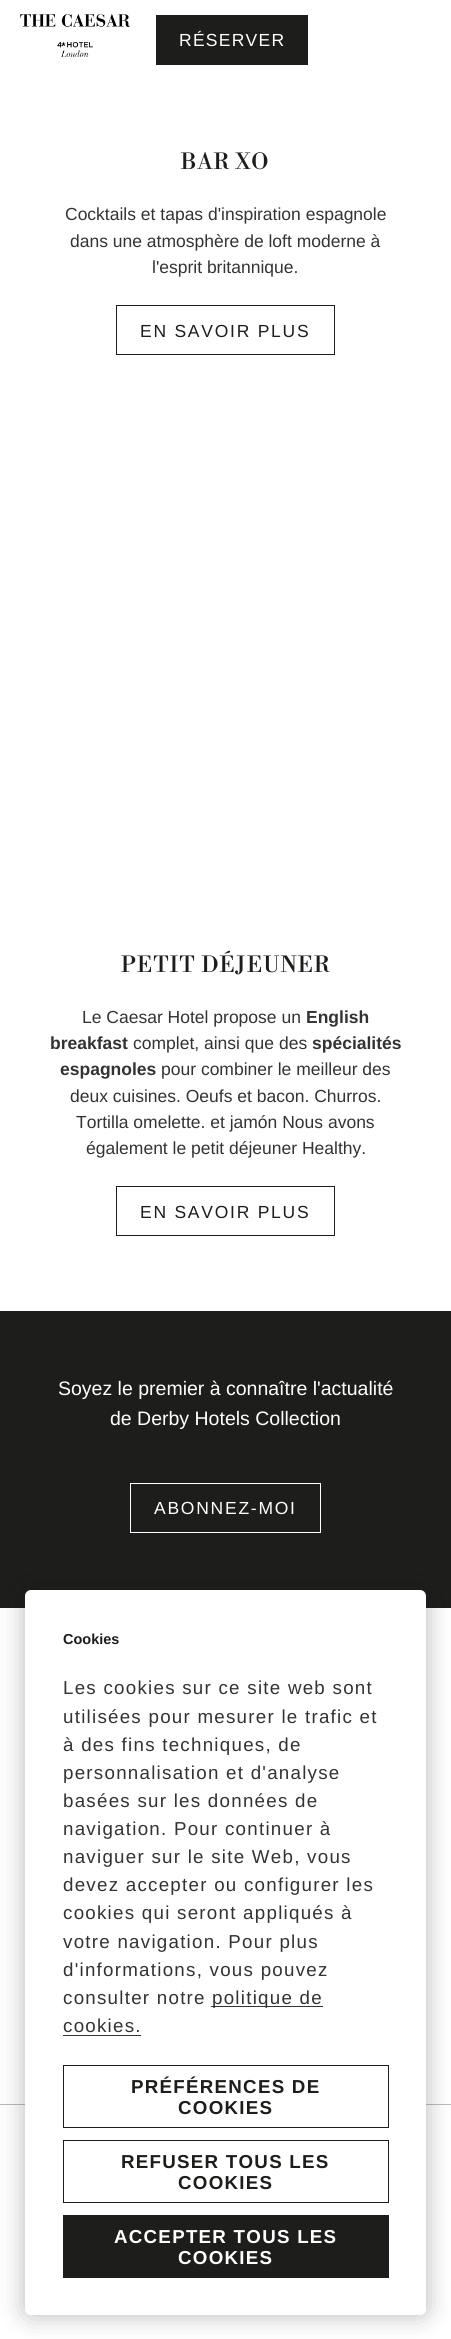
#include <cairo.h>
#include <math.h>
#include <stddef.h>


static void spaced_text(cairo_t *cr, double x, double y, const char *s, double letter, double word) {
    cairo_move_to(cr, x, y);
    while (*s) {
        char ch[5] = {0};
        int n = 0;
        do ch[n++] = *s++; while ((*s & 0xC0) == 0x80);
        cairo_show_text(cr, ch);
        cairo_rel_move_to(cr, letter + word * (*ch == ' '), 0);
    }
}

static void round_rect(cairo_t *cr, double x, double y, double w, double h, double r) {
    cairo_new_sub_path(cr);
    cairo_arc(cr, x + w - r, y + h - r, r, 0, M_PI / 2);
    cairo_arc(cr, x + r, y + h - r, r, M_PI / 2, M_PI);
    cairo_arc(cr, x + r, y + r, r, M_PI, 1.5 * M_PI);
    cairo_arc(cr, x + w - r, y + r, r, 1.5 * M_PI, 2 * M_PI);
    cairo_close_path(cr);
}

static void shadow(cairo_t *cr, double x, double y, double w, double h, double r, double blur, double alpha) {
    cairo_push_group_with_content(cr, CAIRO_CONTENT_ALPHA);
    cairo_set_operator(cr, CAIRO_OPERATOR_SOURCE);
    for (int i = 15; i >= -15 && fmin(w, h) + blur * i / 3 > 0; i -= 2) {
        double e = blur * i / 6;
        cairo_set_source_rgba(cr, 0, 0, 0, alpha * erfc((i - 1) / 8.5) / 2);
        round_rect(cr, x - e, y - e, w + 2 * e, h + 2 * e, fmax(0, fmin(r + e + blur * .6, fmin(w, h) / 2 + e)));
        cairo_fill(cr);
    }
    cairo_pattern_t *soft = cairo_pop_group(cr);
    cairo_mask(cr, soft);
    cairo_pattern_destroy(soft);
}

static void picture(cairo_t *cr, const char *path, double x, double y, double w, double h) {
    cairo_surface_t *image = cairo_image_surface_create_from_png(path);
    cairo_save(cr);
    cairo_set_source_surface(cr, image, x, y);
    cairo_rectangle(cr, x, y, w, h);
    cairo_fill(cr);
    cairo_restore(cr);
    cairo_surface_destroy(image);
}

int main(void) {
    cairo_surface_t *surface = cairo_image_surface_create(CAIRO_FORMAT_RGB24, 451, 2339);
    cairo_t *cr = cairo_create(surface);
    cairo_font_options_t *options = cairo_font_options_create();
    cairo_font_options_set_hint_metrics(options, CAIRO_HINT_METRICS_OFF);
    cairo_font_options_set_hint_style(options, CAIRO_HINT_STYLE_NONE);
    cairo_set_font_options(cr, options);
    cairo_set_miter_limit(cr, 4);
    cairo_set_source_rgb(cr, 1, 1, 1);
    cairo_paint(cr);
    picture(cr, "img1.png", 20, 14, 110, 43);
    cairo_set_source_rgb(cr, 0.114, 0.114, 0.106);
    cairo_rectangle(cr, 156, 15, 152, 50);
    cairo_fill(cr);
    cairo_select_font_face(cr, "Liberation Sans", CAIRO_FONT_SLANT_NORMAL, CAIRO_FONT_WEIGHT_NORMAL);
    cairo_set_font_size(cr, 17.5);
    cairo_set_source_rgb(cr, 1, 1, 1);
    spaced_text(cr, 179, 46, "RÉSERVER", 1.25, 0);
    cairo_select_font_face(cr, "Libre Bodoni", CAIRO_FONT_SLANT_NORMAL, CAIRO_FONT_WEIGHT_NORMAL);
    cairo_set_font_size(cr, 21.9);
    cairo_set_source_rgb(cr, 0.114, 0.114, 0.106);
    spaced_text(cr, 181, 169, "BAR XO", 1.1, 0);
    cairo_select_font_face(cr, "Liberation Sans", CAIRO_FONT_SLANT_NORMAL, CAIRO_FONT_WEIGHT_NORMAL);
    cairo_set_font_size(cr, 17.5);
    cairo_set_source_rgb(cr, 0.2, 0.2, 0.2);
    cairo_move_to(cr, 65, 220);
    cairo_show_text(cr, "Cocktails et tapas d'inspiration espagnole");
    cairo_move_to(cr, 70, 247);
    cairo_show_text(cr, "dans une atmosphère de loft moderne à");
    cairo_move_to(cr, 152, 273);
    cairo_show_text(cr, "l'esprit britannique.");
    cairo_rectangle(cr, 116.5, 305.5, 218, 49);
    cairo_set_source_rgb(cr, 0.114, 0.114, 0.106);
    cairo_set_line_width(cr, 1);
    cairo_stroke(cr);
    spaced_text(cr, 140, 337, "EN SAVOIR PLUS", 1.75, 0);
    cairo_select_font_face(cr, "Libre Bodoni", CAIRO_FONT_SLANT_NORMAL, CAIRO_FONT_WEIGHT_NORMAL);
    cairo_set_font_size(cr, 21.9);
    spaced_text(cr, 121, 972, "PETIT DÉJEUNER", 1.1, 0);
    cairo_select_font_face(cr, "Liberation Sans", CAIRO_FONT_SLANT_NORMAL, CAIRO_FONT_WEIGHT_NORMAL);
    cairo_set_font_size(cr, 17.5);
    cairo_set_source_rgb(cr, 0.2, 0.2, 0.2);
    cairo_move_to(cr, 82, 1023);
    cairo_show_text(cr, "Le Caesar Hotel propose un");
    cairo_select_font_face(cr, "Liberation Sans", CAIRO_FONT_SLANT_NORMAL, CAIRO_FONT_WEIGHT_BOLD);
    cairo_move_to(cr, 306, 1023);
    cairo_show_text(cr, "English");
    cairo_move_to(cr, 50, 1049);
    cairo_show_text(cr, "breakfast");
    cairo_select_font_face(cr, "Liberation Sans", CAIRO_FONT_SLANT_NORMAL, CAIRO_FONT_WEIGHT_NORMAL);
    cairo_move_to(cr, 133, 1049);
    cairo_show_text(cr, "complet, ainsi que des");
    cairo_select_font_face(cr, "Liberation Sans", CAIRO_FONT_SLANT_NORMAL, CAIRO_FONT_WEIGHT_BOLD);
    cairo_move_to(cr, 312, 1049);
    cairo_show_text(cr, "spécialités");
    cairo_move_to(cr, 60, 1075);
    cairo_show_text(cr, "espagnoles");
    cairo_select_font_face(cr, "Liberation Sans", CAIRO_FONT_SLANT_NORMAL, CAIRO_FONT_WEIGHT_NORMAL);
    cairo_move_to(cr, 161, 1075);
    cairo_show_text(cr, "pour combiner le meilleur des");
    cairo_move_to(cr, 70, 1102);
    cairo_show_text(cr, "deux cuisines. Oeufs et bacon. Churros.");
    cairo_move_to(cr, 76, 1128);
    cairo_show_text(cr, "Tortilla omelette. et jamón Nous avons");
    cairo_move_to(cr, 86, 1154);
    cairo_show_text(cr, "également le petit déjeuner Healthy.");
    cairo_rectangle(cr, 116.5, 1186.5, 218, 49);
    cairo_set_source_rgb(cr, 0.114, 0.114, 0.106);
    cairo_stroke(cr);
    spaced_text(cr, 140, 1218, "EN SAVOIR PLUS", 1.75, 0);
    cairo_rectangle(cr, 0, 1311, 451, 297);
    cairo_fill(cr);
    cairo_set_font_size(cr, 19.5);
    cairo_set_source_rgb(cr, 1, 1, 1);
    cairo_move_to(cr, 58, 1395);
    cairo_show_text(cr, "Soyez le premier à connaître l'actualité");
    cairo_move_to(cr, 110, 1425);
    cairo_show_text(cr, "de Derby Hotels Collection");
    cairo_rectangle(cr, 130.5, 1483.5, 190, 49);
    cairo_stroke(cr);
    cairo_set_font_size(cr, 17.5);
    spaced_text(cr, 154, 1514, "ABONNEZ-MOI", 1.75, 0);
    cairo_set_source_rgb(cr, 0.733, 0.733, 0.733);
    cairo_rectangle(cr, 0, 2104, 451, 1);
    cairo_fill(cr);
    cairo_set_source_rgb(cr, 0.067, 0.067, 0.067);
    shadow(cr, 25, 1590, 401, 725, 6, 12.5, 0.3);
    cairo_set_source_rgb(cr, 1, 1, 1);
    round_rect(cr, 25, 1590, 401, 725, 6);
    cairo_fill(cr);
    cairo_select_font_face(cr, "Liberation Sans", CAIRO_FONT_SLANT_NORMAL, CAIRO_FONT_WEIGHT_BOLD);
    cairo_set_font_size(cr, 14.5);
    cairo_set_source_rgb(cr, 0.114, 0.114, 0.106);
    cairo_move_to(cr, 63, 1644);
    cairo_show_text(cr, "Cookies");
    cairo_select_font_face(cr, "Liberation Sans", CAIRO_FONT_SLANT_NORMAL, CAIRO_FONT_WEIGHT_NORMAL);
    cairo_set_font_size(cr, 18.75);
    cairo_set_source_rgb(cr, 0.2, 0.2, 0.2);
    spaced_text(cr, 63, 1694, "Les cookies sur ce site web sont", 1.25, 0);
    spaced_text(cr, 63, 1723, "utilisées pour mesurer le trafic et", 1.25, 0);
    spaced_text(cr, 63, 1751, "à des fins techniques, de", 1.25, 0);
    spaced_text(cr, 63, 1779, "personnalisation et d'analyse", 1.25, 0);
    spaced_text(cr, 63, 1807, "basées sur les données de", 1.25, 0);
    spaced_text(cr, 63, 1835, "navigation. Pour continuer à", 1.25, 0);
    spaced_text(cr, 63, 1863, "naviguer sur le site Web, vous", 1.25, 0);
    spaced_text(cr, 63, 1891, "devez accepter ou configurer les", 1.25, 0);
    spaced_text(cr, 63, 1919, "cookies qui seront appliqués à", 1.25, 0);
    spaced_text(cr, 63, 1948, "votre navigation. Pour plus", 1.25, 0);
    spaced_text(cr, 63, 1976, "d'informations, vous pouvez", 1.25, 0);
    spaced_text(cr, 63, 2004, "consulter notre", 1.25, 0);
    cairo_rectangle(cr, 211, 2006, 112, 1);
    cairo_fill(cr);
    spaced_text(cr, 212, 2004, "politique de", 1.25, 0);
    spaced_text(cr, 63, 2032, "cookies.", 1.25, 0);
    cairo_rectangle(cr, 63, 2035, 78, 1);
    cairo_fill(cr);
    cairo_rectangle(cr, 63.5, 2065.5, 325, 62);
    cairo_set_source_rgb(cr, 0.114, 0.114, 0.106);
    cairo_stroke(cr);
    cairo_select_font_face(cr, "Liberation Sans", CAIRO_FONT_SLANT_NORMAL, CAIRO_FONT_WEIGHT_BOLD);
    spaced_text(cr, 131, 2093, "PRÉFÉRENCES DE", 1.25, 0);
    spaced_text(cr, 178, 2114, "COOKIES", 1.25, 0);
    cairo_rectangle(cr, 63.5, 2140.5, 325, 62);
    cairo_stroke(cr);
    spaced_text(cr, 121, 2168, "REFUSER TOUS LES", 1.25, 0);
    spaced_text(cr, 178, 2189, "COOKIES", 1.25, 0);
    cairo_rectangle(cr, 63, 2215, 326, 63);
    cairo_fill(cr);
    cairo_set_source_rgb(cr, 1, 1, 1);
    spaced_text(cr, 114, 2243, "ACCEPTER TOUS LES", 1.25, 0);
    spaced_text(cr, 178, 2264, "COOKIES", 1.25, 0);
    cairo_surface_write_to_png(surface, "page.png");
    cairo_font_options_destroy(options);
    cairo_destroy(cr);
    cairo_surface_destroy(surface);
    return 0;
}
